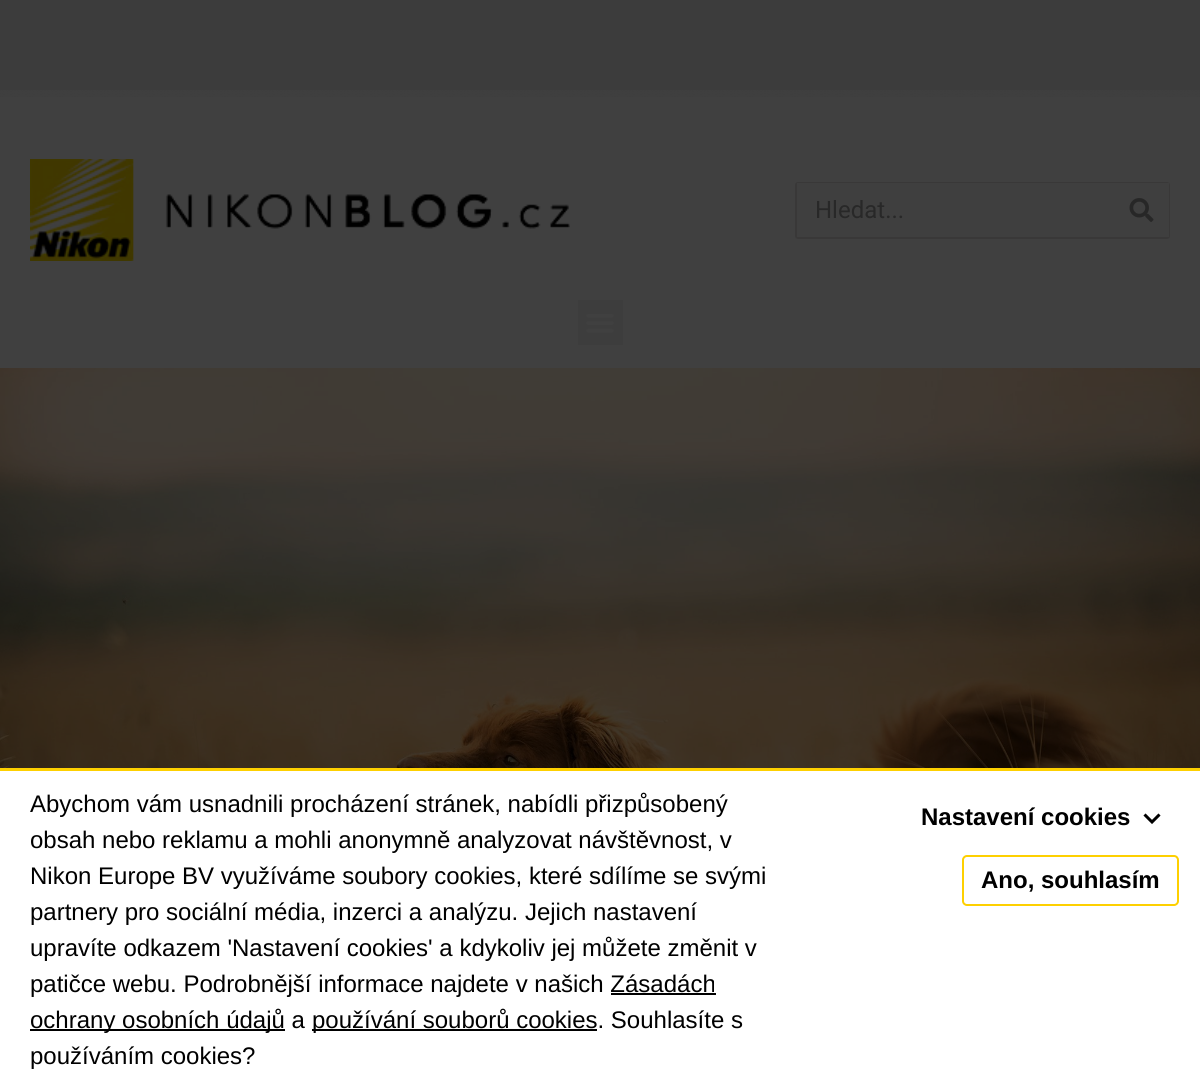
#include <cairo.h>
#include <math.h>
#include <stddef.h>


static void round_rect(cairo_t *cr, double x, double y, double w, double h, double r) {
    cairo_new_sub_path(cr);
    cairo_arc(cr, x + w - r, y + h - r, r, 0, M_PI / 2);
    cairo_arc(cr, x + r, y + h - r, r, M_PI / 2, M_PI);
    cairo_arc(cr, x + r, y + r, r, M_PI, 1.5 * M_PI);
    cairo_arc(cr, x + w - r, y + r, r, 1.5 * M_PI, 2 * M_PI);
    cairo_close_path(cr);
}

static void picture(cairo_t *cr, const char *path, double x, double y, double w, double h) {
    cairo_surface_t *image = cairo_image_surface_create_from_png(path);
    cairo_save(cr);
    cairo_set_source_surface(cr, image, x, y);
    cairo_rectangle(cr, x, y, w, h);
    cairo_fill(cr);
    cairo_restore(cr);
    cairo_surface_destroy(image);
}

int main(void) {
    cairo_surface_t *surface = cairo_image_surface_create(CAIRO_FORMAT_RGB24, 1200, 1088);
    cairo_t *cr = cairo_create(surface);
    cairo_font_options_t *options = cairo_font_options_create();
    cairo_font_options_set_hint_metrics(options, CAIRO_HINT_METRICS_OFF);
    cairo_font_options_set_hint_style(options, CAIRO_HINT_STYLE_NONE);
    cairo_set_font_options(cr, options);
    cairo_set_miter_limit(cr, 4);
    cairo_set_source_rgb(cr, 0.235, 0.235, 0.235);
    cairo_paint(cr);
    cairo_set_source_rgb(cr, 0.251, 0.251, 0.251);
    cairo_rectangle(cr, 0, 90, 1200, 278);
    cairo_fill(cr);
    picture(cr, "img1.png", 0, 90, 1200, 7);
    picture(cr, "img2.png", 30, 159, 540, 102);
    round_rect(cr, 796, 183, 373, 55, 2);
    cairo_set_source_rgb(cr, 0.224, 0.22, 0.22);
    cairo_stroke(cr);
    cairo_set_source_rgb(cr, 0.247, 0.247, 0.247);
    cairo_rectangle(cr, 797, 183, 372, 54);
    cairo_fill(cr);
    cairo_select_font_face(cr, "Roboto", CAIRO_FONT_SLANT_NORMAL, CAIRO_FONT_WEIGHT_NORMAL);
    cairo_set_font_size(cr, 24);
    cairo_set_source_rgb(cr, 0.157, 0.157, 0.157);
    cairo_move_to(cr, 815, 218);
    cairo_show_text(cr, "Hledat...");
    picture(cr, "img3.png", 1129, 198, 25, 24);
    cairo_set_source_rgb(cr, 0.239, 0.239, 0.239);
    cairo_rectangle(cr, 578, 300, 45, 45);
    cairo_fill(cr);
    picture(cr, "img4.png", 586, 314, 28, 19);
    picture(cr, "img5.png", 0, 368, 1200, 400);
    cairo_set_source_rgb(cr, 1, 1, 1);
    cairo_rectangle(cr, 0, 771, 1200, 317);
    cairo_fill(cr);
    cairo_set_source_rgb(cr, 0.996, 0.816, 0);
    cairo_rectangle(cr, 0, 768, 1200, 3);
    cairo_fill(cr);
    cairo_select_font_face(cr, "Liberation Sans", CAIRO_FONT_SLANT_NORMAL, CAIRO_FONT_WEIGHT_NORMAL);
    cairo_set_source_rgb(cr, 0, 0, 0);
    cairo_move_to(cr, 30, 812);
    cairo_show_text(cr, "Abychom vám usnadnili procházení stránek, nabídli přizpůsobený");
    cairo_move_to(cr, 30, 848);
    cairo_show_text(cr, "obsah nebo reklamu a mohli anonymně analyzovat návštěvnost, v");
    cairo_move_to(cr, 30, 884);
    cairo_show_text(cr, "Nikon Europe BV využíváme soubory cookies, které sdílíme se svými");
    cairo_move_to(cr, 30, 920);
    cairo_show_text(cr, "partnery pro sociální média, inzerci a analýzu. Jejich nastavení");
    cairo_move_to(cr, 30, 956);
    cairo_show_text(cr, "upravíte odkazem 'Nastavení cookies' a kdykoliv jej můžete změnit v");
    cairo_move_to(cr, 30, 992);
    cairo_show_text(cr, "patičce webu. Podrobnější informace najdete v našich Zásadách");
    cairo_rectangle(cr, 30, 1029, 255, 2);
    cairo_fill(cr);
    cairo_move_to(cr, 30, 1028);
    cairo_show_text(cr, "ochrany osobních údajů a");
    cairo_rectangle(cr, 611, 993, 105, 2);
    cairo_fill(cr);
    cairo_rectangle(cr, 312, 1029, 285, 2);
    cairo_fill(cr);
    cairo_move_to(cr, 312, 1028);
    cairo_show_text(cr, "používání souborů cookies. Souhlasíte s");
    cairo_move_to(cr, 30, 1064);
    cairo_show_text(cr, "používáním cookies?");
    cairo_select_font_face(cr, "Liberation Sans", CAIRO_FONT_SLANT_NORMAL, CAIRO_FONT_WEIGHT_BOLD);
    cairo_move_to(cr, 921, 825);
    cairo_show_text(cr, "Nastavení cookies");
    cairo_new_path(cr);
    cairo_move_to(cr, 1144.5, 814.5);
    cairo_line_to(cr, 1152, 822);
    cairo_line_to(cr, 1159.5, 814.5);
    cairo_set_line_width(cr, 3);
    cairo_stroke(cr);
    round_rect(cr, 963, 856, 215, 49, 4);
    cairo_set_source_rgb(cr, 0.996, 0.816, 0);
    cairo_set_line_width(cr, 2);
    cairo_stroke(cr);
    cairo_set_source_rgb(cr, 0, 0, 0);
    cairo_move_to(cr, 981, 888);
    cairo_show_text(cr, "Ano, souhlasím");
    cairo_surface_write_to_png(surface, "page.png");
    cairo_font_options_destroy(options);
    cairo_destroy(cr);
    cairo_surface_destroy(surface);
    return 0;
}
